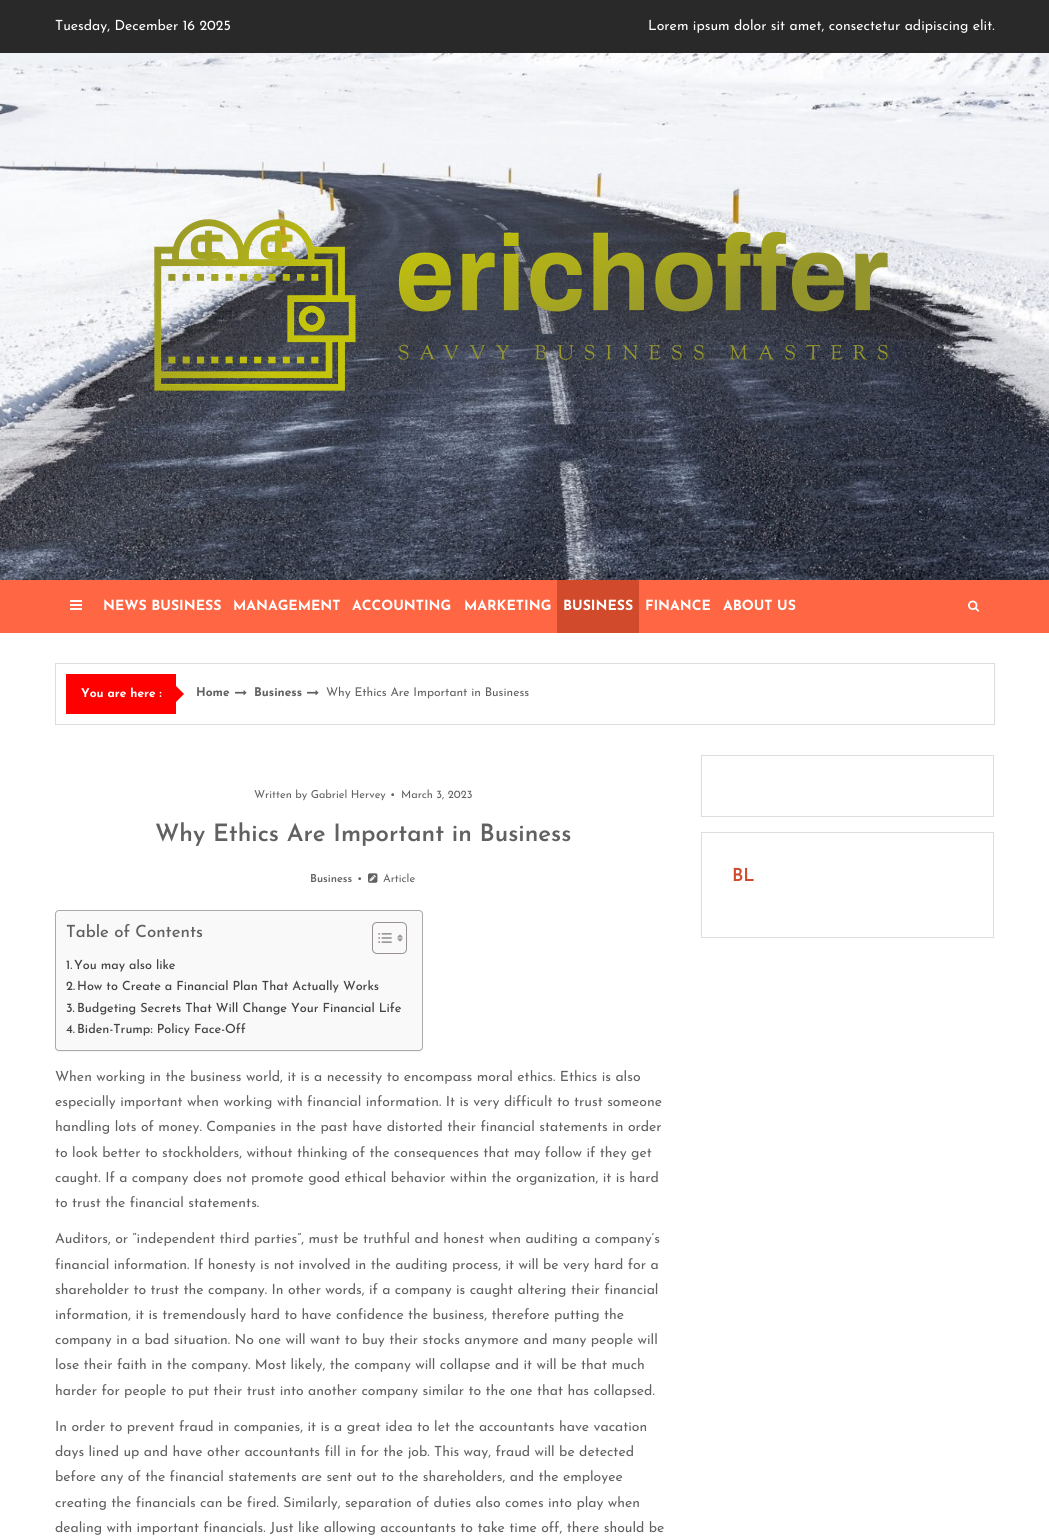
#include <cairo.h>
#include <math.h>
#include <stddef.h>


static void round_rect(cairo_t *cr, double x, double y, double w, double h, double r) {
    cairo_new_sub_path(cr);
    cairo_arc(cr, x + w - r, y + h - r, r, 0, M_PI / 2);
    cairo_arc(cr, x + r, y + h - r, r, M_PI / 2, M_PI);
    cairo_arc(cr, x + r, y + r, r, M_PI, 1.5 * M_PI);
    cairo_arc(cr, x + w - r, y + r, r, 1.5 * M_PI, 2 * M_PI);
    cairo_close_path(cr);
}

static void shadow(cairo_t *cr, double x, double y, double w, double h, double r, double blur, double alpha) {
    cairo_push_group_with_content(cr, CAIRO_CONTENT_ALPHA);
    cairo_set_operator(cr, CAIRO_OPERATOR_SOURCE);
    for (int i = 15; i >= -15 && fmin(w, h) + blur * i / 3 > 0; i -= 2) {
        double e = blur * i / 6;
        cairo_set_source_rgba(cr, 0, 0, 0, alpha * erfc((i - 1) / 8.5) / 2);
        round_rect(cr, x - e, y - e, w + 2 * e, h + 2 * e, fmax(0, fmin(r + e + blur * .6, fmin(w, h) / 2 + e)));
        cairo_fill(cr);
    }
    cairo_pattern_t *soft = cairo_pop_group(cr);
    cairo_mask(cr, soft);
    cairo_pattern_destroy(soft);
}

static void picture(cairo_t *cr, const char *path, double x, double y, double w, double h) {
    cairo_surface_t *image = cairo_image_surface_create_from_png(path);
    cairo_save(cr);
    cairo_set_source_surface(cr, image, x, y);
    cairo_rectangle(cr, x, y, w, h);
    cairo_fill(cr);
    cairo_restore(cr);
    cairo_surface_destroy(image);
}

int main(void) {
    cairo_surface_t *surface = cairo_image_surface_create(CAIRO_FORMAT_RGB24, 1049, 1537);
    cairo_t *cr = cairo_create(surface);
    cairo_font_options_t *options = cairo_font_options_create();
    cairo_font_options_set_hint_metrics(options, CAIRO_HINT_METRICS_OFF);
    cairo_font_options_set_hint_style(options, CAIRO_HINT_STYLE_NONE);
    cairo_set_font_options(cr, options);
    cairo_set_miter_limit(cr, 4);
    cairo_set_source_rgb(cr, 1, 1, 1);
    cairo_paint(cr);
    cairo_set_source_rgb(cr, 0.161, 0.161, 0.161);
    cairo_rectangle(cr, 0, 0, 1049, 53);
    cairo_fill(cr);
    cairo_select_font_face(cr, "Josefin Sans", CAIRO_FONT_SLANT_NORMAL, CAIRO_FONT_WEIGHT_NORMAL);
    cairo_set_font_size(cr, 14);
    cairo_set_source_rgb(cr, 1, 1, 1);
    cairo_move_to(cr, 55, 30);
    cairo_show_text(cr, "Tuesday, December 16 2025");
    cairo_move_to(cr, 648, 30);
    cairo_show_text(cr, "Lorem ipsum dolor sit amet, consectetur adipiscing elit.");
    picture(cr, "img1.png", 0, 53, 1049, 527);
    picture(cr, "img2.png", 153, 219, 736, 172);
    cairo_set_source_rgb(cr, 1, 0.4, 0.267);
    cairo_rectangle(cr, 0, 580, 1049, 53);
    cairo_fill(cr);
    picture(cr, "img3.png", 70, 600, 12, 10);
    cairo_select_font_face(cr, "Josefin Sans", CAIRO_FONT_SLANT_NORMAL, CAIRO_FONT_WEIGHT_BOLD);
    cairo_set_source_rgb(cr, 1, 1, 1);
    cairo_move_to(cr, 103, 610);
    cairo_show_text(cr, "NEWS BUSINESS");
    cairo_move_to(cr, 233, 610);
    cairo_show_text(cr, "MANAGEMENT");
    cairo_move_to(cr, 352, 610);
    cairo_show_text(cr, "ACCOUNTING");
    cairo_move_to(cr, 464, 610);
    cairo_show_text(cr, "MARKETING");
    cairo_set_source_rgb(cr, 0.82, 0.29, 0.169);
    cairo_rectangle(cr, 557, 580, 82, 53);
    cairo_fill(cr);
    cairo_set_source_rgb(cr, 1, 1, 1);
    cairo_move_to(cr, 563, 610);
    cairo_show_text(cr, "BUSINESS");
    cairo_move_to(cr, 645, 610);
    cairo_show_text(cr, "FINANCE");
    cairo_move_to(cr, 723, 610);
    cairo_show_text(cr, "ABOUT US");
    picture(cr, "img4.png", 968, 600, 12, 12);
    cairo_rectangle(cr, 55.5, 663.5, 939, 61);
    cairo_set_source_rgb(cr, 0.867, 0.867, 0.867);
    cairo_set_line_width(cr, 1);
    cairo_stroke(cr);
    cairo_set_source_rgb(cr, 1, 0, 0);
    cairo_rectangle(cr, 66, 674, 110, 40);
    cairo_fill(cr);
    cairo_set_font_size(cr, 12);
    cairo_set_source_rgb(cr, 1, 1, 1);
    cairo_move_to(cr, 81, 697);
    cairo_show_text(cr, "You are here :");
    cairo_set_source_rgb(cr, 1, 0, 0);
    cairo_new_path(cr);
    cairo_move_to(cr, 174, 704);
    cairo_line_to(cr, 174, 684);
    cairo_line_to(cr, 184, 694);
    cairo_close_path(cr);
    cairo_fill(cr);
    cairo_set_source_rgb(cr, 0.38, 0.38, 0.38);
    cairo_move_to(cr, 196, 696);
    cairo_show_text(cr, "Home");
    picture(cr, "img5.png", 235, 690, 12, 6);
    cairo_move_to(cr, 254, 696);
    cairo_show_text(cr, "Business");
    picture(cr, "img5.png", 307, 690, 12, 6);
    cairo_select_font_face(cr, "Josefin Sans", CAIRO_FONT_SLANT_NORMAL, CAIRO_FONT_WEIGHT_NORMAL);
    cairo_move_to(cr, 326, 696);
    cairo_show_text(cr, "Why Ethics Are Important in Business");
    cairo_set_font_size(cr, 11);
    cairo_move_to(cr, 254, 798);
    cairo_show_text(cr, "Written by Gabriel Hervey");
    cairo_move_to(cr, 390, 798);
    cairo_show_text(cr, "•");
    cairo_move_to(cr, 401, 798);
    cairo_show_text(cr, "March 3, 2023");
    cairo_select_font_face(cr, "Josefin Sans SemiBold", CAIRO_FONT_SLANT_NORMAL, CAIRO_FONT_WEIGHT_NORMAL);
    cairo_set_font_size(cr, 24);
    cairo_move_to(cr, 155, 841);
    cairo_show_text(cr, "Why Ethics Are Important in Business");
    cairo_set_font_size(cr, 11);
    cairo_move_to(cr, 310, 882);
    cairo_show_text(cr, "Business");
    cairo_select_font_face(cr, "Josefin Sans", CAIRO_FONT_SLANT_NORMAL, CAIRO_FONT_WEIGHT_NORMAL);
    cairo_move_to(cr, 357, 882);
    cairo_show_text(cr, "•");
    picture(cr, "img6.png", 368, 873, 10, 10);
    cairo_move_to(cr, 383, 882);
    cairo_show_text(cr, "Article");
    cairo_set_source_rgb(cr, 0, 0, 0);
    shadow(cr, 55, 911, 368, 141, 4, 0.5, 0.05);
    cairo_set_source_rgb(cr, 0.976, 0.976, 0.976);
    round_rect(cr, 55.5, 910.5, 367, 140, 3.5);
    cairo_fill_preserve(cr);
    cairo_set_source_rgb(cr, 0.667, 0.667, 0.667);
    cairo_stroke(cr);
    cairo_select_font_face(cr, "Josefin Sans Medium", CAIRO_FONT_SLANT_NORMAL, CAIRO_FONT_WEIGHT_NORMAL);
    cairo_set_font_size(cr, 16.75);
    cairo_set_source_rgb(cr, 0.38, 0.38, 0.38);
    cairo_move_to(cr, 66, 937);
    cairo_show_text(cr, "Table of Contents");
    round_rect(cr, 372.5, 922.5, 34, 31, 4.5);
    cairo_set_source_rgb(cr, 0.6, 0.569, 0.569);
    cairo_stroke(cr);
    picture(cr, "img7.png", 378, 933, 14, 10);
    picture(cr, "img8.png", 397, 934, 6, 8);
    cairo_set_font_size(cr, 12.6);
    cairo_set_source_rgb(cr, 0.267, 0.267, 0.267);
    cairo_move_to(cr, 66, 969);
    cairo_show_text(cr, "1.");
    cairo_move_to(cr, 74, 969);
    cairo_show_text(cr, "You may also like");
    cairo_move_to(cr, 66, 990);
    cairo_show_text(cr, "2.");
    cairo_move_to(cr, 77, 990);
    cairo_show_text(cr, "How to Create a Financial Plan That Actually Works");
    cairo_move_to(cr, 66, 1012);
    cairo_show_text(cr, "3.");
    cairo_move_to(cr, 77, 1012);
    cairo_show_text(cr, "Budgeting Secrets That Will Change Your Financial Life");
    cairo_move_to(cr, 66, 1033);
    cairo_show_text(cr, "4.");
    cairo_move_to(cr, 77, 1033);
    cairo_show_text(cr, "Biden-Trump: Policy Face-Off");
    cairo_select_font_face(cr, "Josefin Sans", CAIRO_FONT_SLANT_NORMAL, CAIRO_FONT_WEIGHT_NORMAL);
    cairo_set_font_size(cr, 14);
    cairo_set_source_rgb(cr, 0.38, 0.38, 0.38);
    cairo_move_to(cr, 55, 1081);
    cairo_show_text(cr, "When working in the business world, it is a necessity to encompass moral ethics. Ethics is also");
    cairo_move_to(cr, 55, 1106);
    cairo_show_text(cr, "especially important when working with financial information. It is very difficult to trust someone");
    cairo_move_to(cr, 55, 1131);
    cairo_show_text(cr, "handling lots of money. Companies in the past have distorted their financial statements in order");
    cairo_move_to(cr, 55, 1157);
    cairo_show_text(cr, "to look better to stockholders, without thinking of the consequences that may follow if they get");
    cairo_move_to(cr, 55, 1182);
    cairo_show_text(cr, "caught. If a company does not promote good ethical behavior within the organization, it is hard");
    cairo_move_to(cr, 55, 1207);
    cairo_show_text(cr, "to trust the financial statements.");
    cairo_move_to(cr, 55, 1243);
    cairo_show_text(cr, "Auditors, or “independent third parties”, must be truthful and honest when auditing a company’s");
    cairo_move_to(cr, 55, 1269);
    cairo_show_text(cr, "financial information. If honesty is not involved in the auditing process, it will be very hard for a");
    cairo_move_to(cr, 55, 1294);
    cairo_show_text(cr, "shareholder to trust the company. In other words, if a company is caught altering their financial");
    cairo_move_to(cr, 55, 1319);
    cairo_show_text(cr, "information, it is tremendously hard to have confidence the business, therefore putting the");
    cairo_move_to(cr, 55, 1344);
    cairo_show_text(cr, "company in a bad situation. No one will want to buy their stocks anymore and many people will");
    cairo_move_to(cr, 55, 1369);
    cairo_show_text(cr, "lose their faith in the company. Most likely, the company will collapse and it will be that much");
    cairo_move_to(cr, 55, 1395);
    cairo_show_text(cr, "harder for people to put their trust into another company similar to the one that has collapsed.");
    cairo_move_to(cr, 55, 1431);
    cairo_show_text(cr, "In order to prevent fraud in companies, it is a great idea to let the accountants have vacation");
    cairo_move_to(cr, 55, 1456);
    cairo_show_text(cr, "days lined up and have other accountants fill in for the job. This way, fraud will be detected");
    cairo_move_to(cr, 55, 1481);
    cairo_show_text(cr, "before any of the financial statements are sent out to the shareholders, and the employee");
    cairo_move_to(cr, 55, 1507);
    cairo_show_text(cr, "creating the financials can be fired. Similarly, separation of duties also comes into play when");
    cairo_move_to(cr, 55, 1532);
    cairo_show_text(cr, "dealing with important financials. Just like allowing accountants to take time off, there should be");
    cairo_rectangle(cr, 701.5, 755.5, 292, 61);
    cairo_set_source_rgb(cr, 0.867, 0.867, 0.867);
    cairo_stroke(cr);
    cairo_rectangle(cr, 701.5, 832.5, 292, 105);
    cairo_stroke(cr);
    cairo_select_font_face(cr, "Josefin Sans SemiBold", CAIRO_FONT_SLANT_NORMAL, CAIRO_FONT_WEIGHT_NORMAL);
    cairo_set_font_size(cr, 18);
    cairo_set_source_rgb(cr, 0.82, 0.29, 0.169);
    cairo_move_to(cr, 732, 881);
    cairo_show_text(cr, "BL");
    cairo_surface_write_to_png(surface, "page.png");
    cairo_font_options_destroy(options);
    cairo_destroy(cr);
    cairo_surface_destroy(surface);
    return 0;
}
